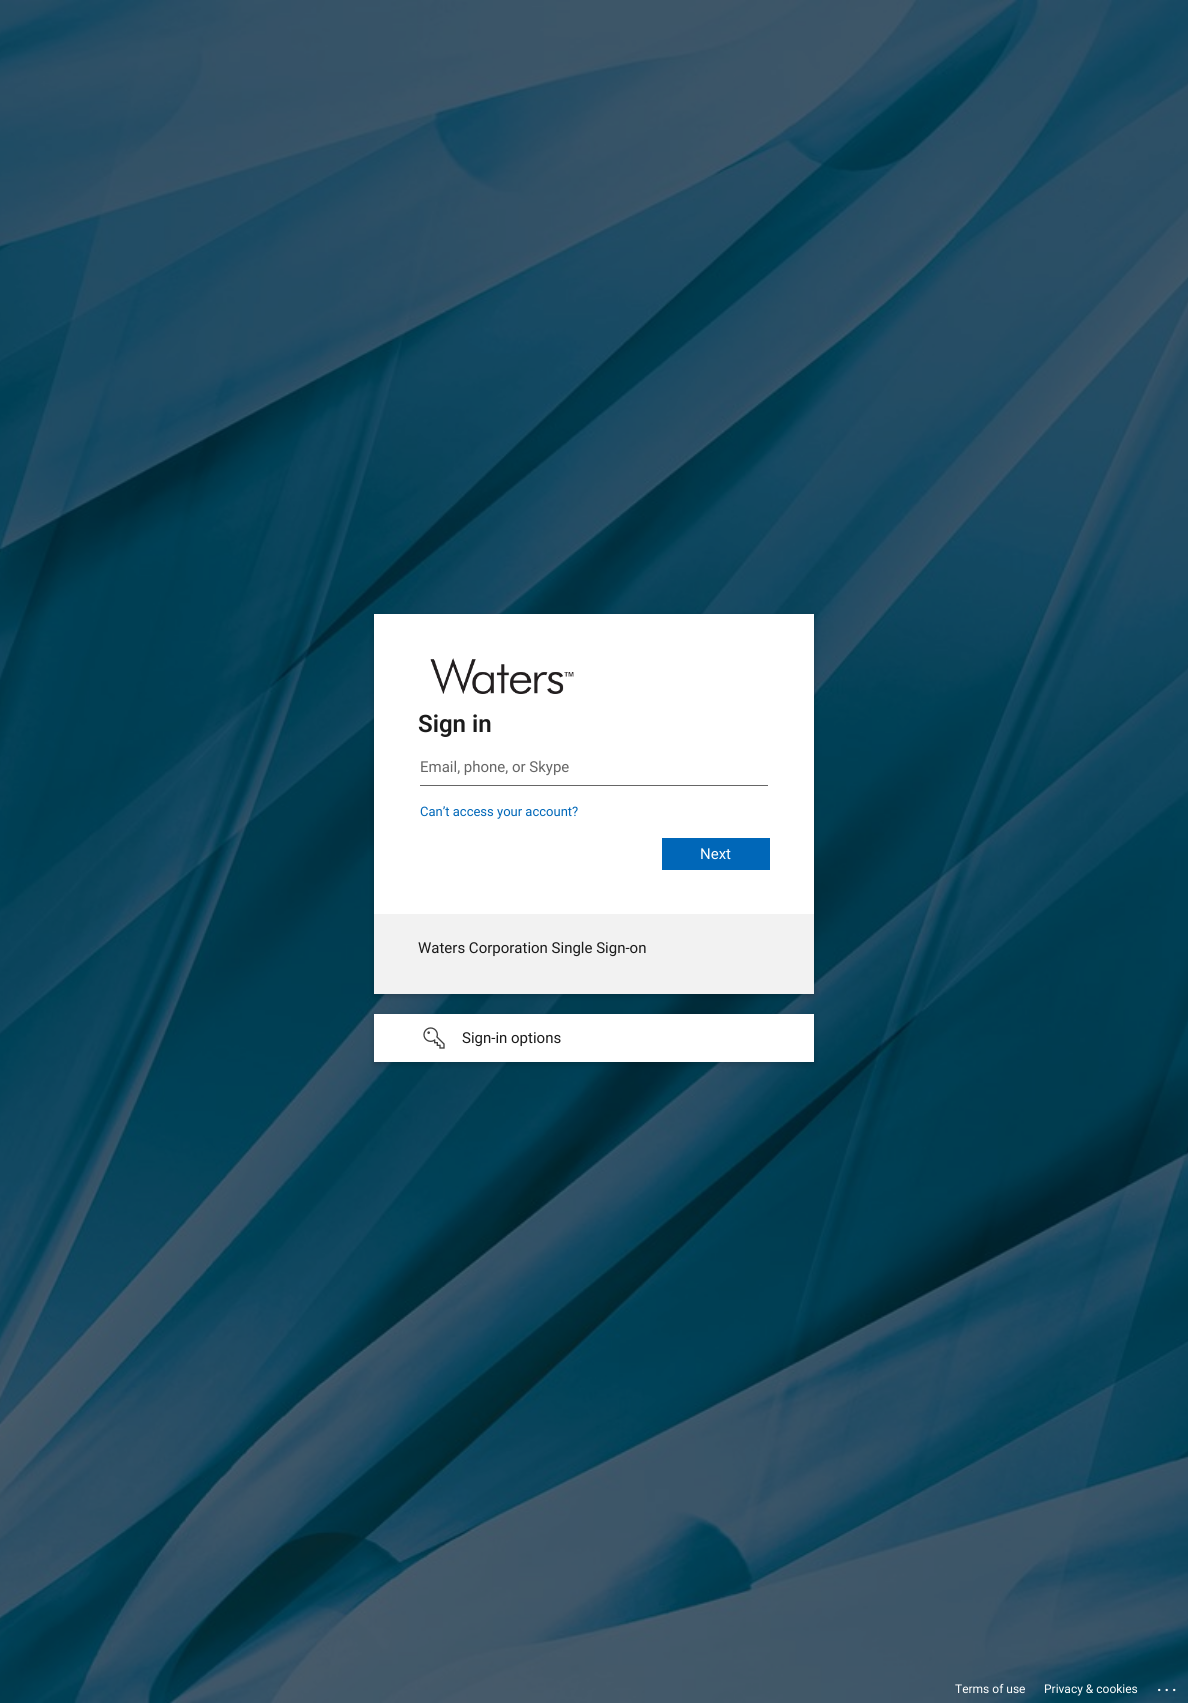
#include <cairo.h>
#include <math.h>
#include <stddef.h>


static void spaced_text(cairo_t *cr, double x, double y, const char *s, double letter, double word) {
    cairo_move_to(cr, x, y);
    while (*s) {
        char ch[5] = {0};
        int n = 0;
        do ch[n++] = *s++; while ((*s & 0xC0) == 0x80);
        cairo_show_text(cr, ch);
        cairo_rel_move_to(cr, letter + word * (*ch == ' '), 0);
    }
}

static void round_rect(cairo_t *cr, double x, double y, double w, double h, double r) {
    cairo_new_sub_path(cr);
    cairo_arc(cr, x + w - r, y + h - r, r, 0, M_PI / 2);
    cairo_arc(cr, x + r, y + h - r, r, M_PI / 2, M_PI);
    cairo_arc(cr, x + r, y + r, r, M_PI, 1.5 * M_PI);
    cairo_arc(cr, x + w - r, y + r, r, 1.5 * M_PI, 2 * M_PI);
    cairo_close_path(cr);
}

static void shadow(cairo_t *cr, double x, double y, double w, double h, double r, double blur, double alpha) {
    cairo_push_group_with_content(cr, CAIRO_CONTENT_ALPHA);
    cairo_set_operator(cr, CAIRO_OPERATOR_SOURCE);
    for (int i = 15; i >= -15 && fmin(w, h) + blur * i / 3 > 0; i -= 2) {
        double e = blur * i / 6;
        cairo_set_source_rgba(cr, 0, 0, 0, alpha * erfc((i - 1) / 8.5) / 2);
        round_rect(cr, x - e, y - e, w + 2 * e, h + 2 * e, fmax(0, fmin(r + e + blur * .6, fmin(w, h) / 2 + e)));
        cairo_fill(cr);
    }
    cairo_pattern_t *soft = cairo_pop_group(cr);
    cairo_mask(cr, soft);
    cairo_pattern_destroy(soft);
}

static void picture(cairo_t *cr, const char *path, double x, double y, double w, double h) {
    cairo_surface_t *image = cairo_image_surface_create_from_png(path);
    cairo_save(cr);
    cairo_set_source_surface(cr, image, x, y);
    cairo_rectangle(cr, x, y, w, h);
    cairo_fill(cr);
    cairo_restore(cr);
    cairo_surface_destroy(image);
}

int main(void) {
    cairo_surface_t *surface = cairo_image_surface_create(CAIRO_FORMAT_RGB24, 1188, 1703);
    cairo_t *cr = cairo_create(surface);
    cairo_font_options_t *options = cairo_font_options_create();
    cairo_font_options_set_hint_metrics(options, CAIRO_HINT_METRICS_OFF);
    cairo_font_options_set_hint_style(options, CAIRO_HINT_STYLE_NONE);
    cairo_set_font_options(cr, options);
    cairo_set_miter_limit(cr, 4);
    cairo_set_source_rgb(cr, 1, 1, 1);
    cairo_paint(cr);
    picture(cr, "img1.png", 0, 0, 1188, 1703);
    cairo_set_source_rgb(cr, 0, 0, 0);
    shadow(cr, 374, 616, 440, 380, 0, 3, 0.2);
    cairo_set_source_rgb(cr, 1, 1, 1);
    cairo_rectangle(cr, 374, 614, 440, 300);
    cairo_fill(cr);
    picture(cr, "img2.png", 430, 658, 144, 36);
    cairo_select_font_face(cr, "Roboto SemiBold", CAIRO_FONT_SLANT_NORMAL, CAIRO_FONT_WEIGHT_NORMAL);
    cairo_set_font_size(cr, 24);
    cairo_set_source_rgb(cr, 0.106, 0.106, 0.106);
    cairo_move_to(cr, 418, 732);
    cairo_show_text(cr, "Sign in");
    cairo_set_source_rgb(cr, 0.4, 0.4, 0.4);
    cairo_rectangle(cr, 420, 785, 348, 1);
    cairo_fill(cr);
    cairo_select_font_face(cr, "Roboto", CAIRO_FONT_SLANT_NORMAL, CAIRO_FONT_WEIGHT_NORMAL);
    cairo_set_font_size(cr, 15);
    cairo_move_to(cr, 420, 772);
    cairo_show_text(cr, "Email, phone, or Skype");
    cairo_set_font_size(cr, 13);
    cairo_set_source_rgb(cr, 0, 0.404, 0.722);
    cairo_move_to(cr, 420, 816);
    cairo_show_text(cr, "Can’t access your account?");
    cairo_rectangle(cr, 662, 838, 108, 32);
    cairo_fill(cr);
    cairo_set_font_size(cr, 15);
    cairo_set_source_rgb(cr, 1, 1, 1);
    cairo_move_to(cr, 700, 859);
    cairo_show_text(cr, "Next");
    cairo_set_source_rgb(cr, 0.949, 0.949, 0.949);
    cairo_rectangle(cr, 374, 914, 440, 80);
    cairo_fill(cr);
    cairo_set_source_rgb(cr, 0.106, 0.106, 0.106);
    cairo_move_to(cr, 418, 953);
    cairo_show_text(cr, "Waters Corporation Single Sign-on");
    cairo_set_source_rgb(cr, 0, 0, 0);
    shadow(cr, 374, 1016, 440, 48, 0, 3, 0.2);
    cairo_set_source_rgb(cr, 1, 1, 1);
    cairo_rectangle(cr, 374, 1014, 440, 48);
    cairo_fill(cr);
    picture(cr, "img3.png", 423, 1027, 22, 22);
    cairo_set_source_rgb(cr, 0.106, 0.106, 0.106);
    cairo_move_to(cr, 462, 1043);
    cairo_show_text(cr, "Sign-in options");
    cairo_set_font_size(cr, 12);
    cairo_set_source_rgb(cr, 1, 1, 1);
    cairo_move_to(cr, 955, 1693);
    cairo_show_text(cr, "Terms of use");
    cairo_move_to(cr, 1044, 1693);
    cairo_show_text(cr, "Privacy & cookies");
    cairo_select_font_face(cr, "Roboto SemiBold", CAIRO_FONT_SLANT_NORMAL, CAIRO_FONT_WEIGHT_NORMAL);
    cairo_set_font_size(cr, 16);
    spaced_text(cr, 1157, 1691, "...", 3, 0);
    cairo_surface_write_to_png(surface, "page.png");
    cairo_font_options_destroy(options);
    cairo_destroy(cr);
    cairo_surface_destroy(surface);
    return 0;
}
